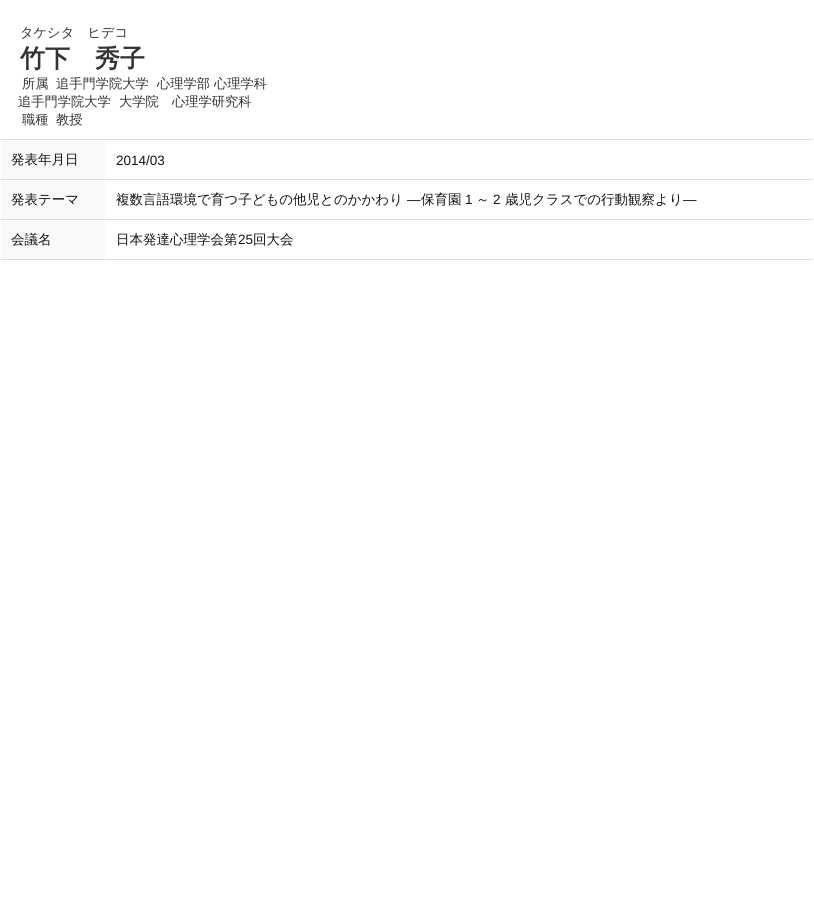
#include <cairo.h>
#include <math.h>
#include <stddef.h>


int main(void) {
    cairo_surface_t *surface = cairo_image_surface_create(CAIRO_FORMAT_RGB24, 814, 900);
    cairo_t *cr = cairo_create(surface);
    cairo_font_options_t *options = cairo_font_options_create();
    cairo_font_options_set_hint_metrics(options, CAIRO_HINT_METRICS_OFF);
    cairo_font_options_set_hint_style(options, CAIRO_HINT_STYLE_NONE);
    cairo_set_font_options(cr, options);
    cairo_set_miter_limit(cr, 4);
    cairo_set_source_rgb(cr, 1, 1, 1);
    cairo_paint(cr);
    cairo_set_source_rgb(cr, 0.867, 0.867, 0.867);
    cairo_rectangle(cr, 1, 139, 812, 1);
    cairo_fill(cr);
    cairo_select_font_face(cr, "WenQuanYi Zen Hei Medium", CAIRO_FONT_SLANT_NORMAL, CAIRO_FONT_WEIGHT_NORMAL);
    cairo_set_font_size(cr, 13.25);
    cairo_set_source_rgb(cr, 0.2, 0.2, 0.2);
    cairo_move_to(cr, 20, 37);
    cairo_show_text(cr, "タケシタ　ヒデコ");
    cairo_select_font_face(cr, "WenQuanYi Zen Hei", CAIRO_FONT_SLANT_NORMAL, CAIRO_FONT_WEIGHT_BOLD);
    cairo_set_font_size(cr, 25);
    cairo_move_to(cr, 20, 67);
    cairo_show_text(cr, "竹下　秀子");
    cairo_select_font_face(cr, "WenQuanYi Zen Hei Medium", CAIRO_FONT_SLANT_NORMAL, CAIRO_FONT_WEIGHT_NORMAL);
    cairo_set_font_size(cr, 13.25);
    cairo_move_to(cr, 22, 88);
    cairo_show_text(cr, "所属");
    cairo_move_to(cr, 56, 88);
    cairo_show_text(cr, "追手門学院大学");
    cairo_move_to(cr, 157, 88);
    cairo_show_text(cr, "心理学部 心理学科");
    cairo_move_to(cr, 18, 106);
    cairo_show_text(cr, "追手門学院大学");
    cairo_move_to(cr, 119, 106);
    cairo_show_text(cr, "大学院　心理学研究科");
    cairo_move_to(cr, 22, 124);
    cairo_show_text(cr, "職種");
    cairo_move_to(cr, 56, 124);
    cairo_show_text(cr, "教授");
    cairo_set_source_rgb(cr, 0.973, 0.973, 0.973);
    cairo_rectangle(cr, 1, 141, 104, 38);
    cairo_fill(cr);
    cairo_set_source_rgb(cr, 0.867, 0.867, 0.867);
    cairo_rectangle(cr, 1, 179, 104, 1);
    cairo_fill(cr);
    cairo_set_font_size(cr, 13.5);
    cairo_set_source_rgb(cr, 0.075, 0.075, 0.075);
    cairo_move_to(cr, 11, 164);
    cairo_show_text(cr, "発表年月日");
    cairo_set_source_rgb(cr, 0.867, 0.867, 0.867);
    cairo_rectangle(cr, 106, 179, 707, 1);
    cairo_fill(cr);
    cairo_select_font_face(cr, "Liberation Sans", CAIRO_FONT_SLANT_NORMAL, CAIRO_FONT_WEIGHT_NORMAL);
    cairo_set_source_rgb(cr, 0.075, 0.075, 0.075);
    cairo_move_to(cr, 116, 165);
    cairo_show_text(cr, "2014/03");
    cairo_set_source_rgb(cr, 0.973, 0.973, 0.973);
    cairo_rectangle(cr, 1, 181, 104, 38);
    cairo_fill(cr);
    cairo_set_source_rgb(cr, 0.867, 0.867, 0.867);
    cairo_rectangle(cr, 1, 219, 104, 1);
    cairo_fill(cr);
    cairo_select_font_face(cr, "WenQuanYi Zen Hei Medium", CAIRO_FONT_SLANT_NORMAL, CAIRO_FONT_WEIGHT_NORMAL);
    cairo_set_source_rgb(cr, 0.075, 0.075, 0.075);
    cairo_move_to(cr, 11, 204);
    cairo_show_text(cr, "発表テーマ");
    cairo_set_source_rgb(cr, 0.867, 0.867, 0.867);
    cairo_rectangle(cr, 106, 219, 707, 1);
    cairo_fill(cr);
    cairo_set_source_rgb(cr, 0.075, 0.075, 0.075);
    cairo_move_to(cr, 116, 204);
    cairo_show_text(cr, "複数言語環境で育つ子どもの他児とのかかわり");
    cairo_select_font_face(cr, "Liberation Sans", CAIRO_FONT_SLANT_NORMAL, CAIRO_FONT_WEIGHT_NORMAL);
    cairo_move_to(cr, 407, 204);
    cairo_show_text(cr, "―");
    cairo_select_font_face(cr, "WenQuanYi Zen Hei Medium", CAIRO_FONT_SLANT_NORMAL, CAIRO_FONT_WEIGHT_NORMAL);
    cairo_move_to(cr, 421, 204);
    cairo_show_text(cr, "保育園");
    cairo_select_font_face(cr, "Liberation Sans", CAIRO_FONT_SLANT_NORMAL, CAIRO_FONT_WEIGHT_NORMAL);
    cairo_move_to(cr, 465, 204);
    cairo_show_text(cr, "1");
    cairo_select_font_face(cr, "WenQuanYi Zen Hei Medium", CAIRO_FONT_SLANT_NORMAL, CAIRO_FONT_WEIGHT_NORMAL);
    cairo_move_to(cr, 476, 204);
    cairo_show_text(cr, "～");
    cairo_select_font_face(cr, "Liberation Sans", CAIRO_FONT_SLANT_NORMAL, CAIRO_FONT_WEIGHT_NORMAL);
    cairo_move_to(cr, 493, 204);
    cairo_show_text(cr, "2");
    cairo_select_font_face(cr, "WenQuanYi Zen Hei Medium", CAIRO_FONT_SLANT_NORMAL, CAIRO_FONT_WEIGHT_NORMAL);
    cairo_move_to(cr, 505, 204);
    cairo_show_text(cr, "歳児クラスでの行動観察より");
    cairo_select_font_face(cr, "Liberation Sans", CAIRO_FONT_SLANT_NORMAL, CAIRO_FONT_WEIGHT_NORMAL);
    cairo_move_to(cr, 683, 204);
    cairo_show_text(cr, "―");
    cairo_set_source_rgb(cr, 0.973, 0.973, 0.973);
    cairo_rectangle(cr, 1, 221, 104, 38);
    cairo_fill(cr);
    cairo_set_source_rgb(cr, 0.867, 0.867, 0.867);
    cairo_rectangle(cr, 1, 259, 104, 1);
    cairo_fill(cr);
    cairo_select_font_face(cr, "WenQuanYi Zen Hei Medium", CAIRO_FONT_SLANT_NORMAL, CAIRO_FONT_WEIGHT_NORMAL);
    cairo_set_source_rgb(cr, 0.075, 0.075, 0.075);
    cairo_move_to(cr, 11, 244);
    cairo_show_text(cr, "会議名");
    cairo_set_source_rgb(cr, 0.867, 0.867, 0.867);
    cairo_rectangle(cr, 106, 259, 707, 1);
    cairo_fill(cr);
    cairo_set_source_rgb(cr, 0.075, 0.075, 0.075);
    cairo_move_to(cr, 116, 244);
    cairo_show_text(cr, "日本発達心理学会第");
    cairo_select_font_face(cr, "Liberation Sans", CAIRO_FONT_SLANT_NORMAL, CAIRO_FONT_WEIGHT_NORMAL);
    cairo_move_to(cr, 238, 244);
    cairo_show_text(cr, "25");
    cairo_select_font_face(cr, "WenQuanYi Zen Hei Medium", CAIRO_FONT_SLANT_NORMAL, CAIRO_FONT_WEIGHT_NORMAL);
    cairo_move_to(cr, 253, 244);
    cairo_show_text(cr, "回大会");
    cairo_surface_write_to_png(surface, "page.png");
    cairo_font_options_destroy(options);
    cairo_destroy(cr);
    cairo_surface_destroy(surface);
    return 0;
}
